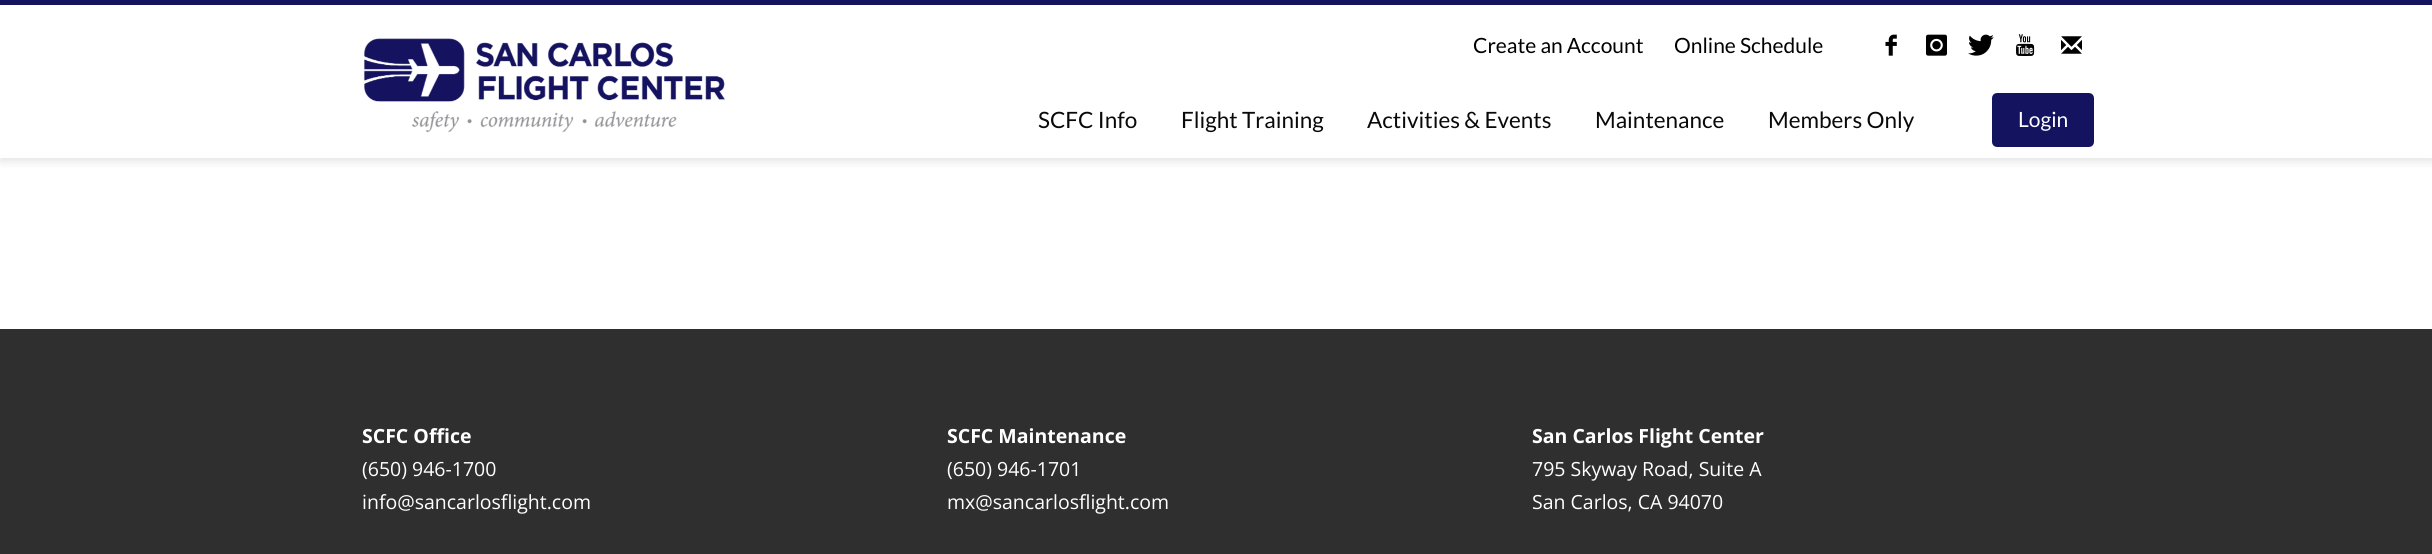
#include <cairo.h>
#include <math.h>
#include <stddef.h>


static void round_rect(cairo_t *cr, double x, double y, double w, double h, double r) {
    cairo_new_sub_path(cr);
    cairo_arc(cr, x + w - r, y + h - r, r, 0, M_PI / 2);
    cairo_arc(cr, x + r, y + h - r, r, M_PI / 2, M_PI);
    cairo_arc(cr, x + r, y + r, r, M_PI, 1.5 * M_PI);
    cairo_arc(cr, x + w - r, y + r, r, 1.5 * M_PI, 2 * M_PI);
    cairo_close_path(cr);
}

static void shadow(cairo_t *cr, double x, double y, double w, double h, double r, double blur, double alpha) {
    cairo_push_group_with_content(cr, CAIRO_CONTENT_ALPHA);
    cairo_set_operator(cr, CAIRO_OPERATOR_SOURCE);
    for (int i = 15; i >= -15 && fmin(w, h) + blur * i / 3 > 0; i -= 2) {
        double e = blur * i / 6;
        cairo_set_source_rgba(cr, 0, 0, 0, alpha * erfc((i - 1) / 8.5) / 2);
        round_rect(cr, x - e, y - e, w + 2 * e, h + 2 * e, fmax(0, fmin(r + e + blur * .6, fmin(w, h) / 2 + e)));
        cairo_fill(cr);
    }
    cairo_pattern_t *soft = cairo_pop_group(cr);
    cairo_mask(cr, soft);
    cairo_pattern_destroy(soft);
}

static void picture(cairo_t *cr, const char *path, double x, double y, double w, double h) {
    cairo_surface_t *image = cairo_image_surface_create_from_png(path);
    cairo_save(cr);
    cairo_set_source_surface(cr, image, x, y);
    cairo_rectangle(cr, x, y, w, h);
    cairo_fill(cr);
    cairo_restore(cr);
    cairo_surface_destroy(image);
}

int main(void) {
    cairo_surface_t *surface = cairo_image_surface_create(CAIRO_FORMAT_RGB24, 2432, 554);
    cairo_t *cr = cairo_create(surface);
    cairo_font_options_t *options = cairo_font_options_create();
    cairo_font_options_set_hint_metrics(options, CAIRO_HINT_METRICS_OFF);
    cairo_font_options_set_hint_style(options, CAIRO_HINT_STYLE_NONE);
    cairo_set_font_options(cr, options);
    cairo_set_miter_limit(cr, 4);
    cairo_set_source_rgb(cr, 1, 1, 1);
    cairo_paint(cr);
    cairo_set_source_rgb(cr, 0, 0, 0);
    shadow(cr, 0, 5, 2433, 157, 0, 4, 0.1);
    cairo_set_source_rgb(cr, 1, 1, 1);
    cairo_rectangle(cr, 0, 5, 2432, 153);
    cairo_fill(cr);
    cairo_set_source_rgb(cr, 0.082, 0.075, 0.373);
    cairo_rectangle(cr, 0, 0, 2432, 5);
    cairo_fill(cr);
    picture(cr, "img1.png", 363, 38, 362, 95);
    cairo_select_font_face(cr, "Lato", CAIRO_FONT_SLANT_NORMAL, CAIRO_FONT_WEIGHT_NORMAL);
    cairo_set_font_size(cr, 21);
    cairo_set_source_rgb(cr, 0, 0, 0);
    cairo_move_to(cr, 1473, 53);
    cairo_show_text(cr, "Create an Account");
    cairo_move_to(cr, 1674, 53);
    cairo_show_text(cr, "Online Schedule");
    picture(cr, "img2.png", 1885, 34, 12, 22);
    picture(cr, "img3.png", 1926, 34, 21, 22);
    picture(cr, "img4.png", 1968, 34, 26, 22);
    picture(cr, "img5.png", 2016, 34, 19, 22);
    picture(cr, "img6.png", 2061, 36, 21, 18);
    cairo_set_font_size(cr, 22.5);
    cairo_set_source_rgb(cr, 0.039, 0.039, 0.039);
    cairo_move_to(cr, 1038, 128);
    cairo_show_text(cr, "SCFC Info");
    cairo_move_to(cr, 1181, 128);
    cairo_show_text(cr, "Flight Training");
    cairo_move_to(cr, 1367, 128);
    cairo_show_text(cr, "Activities & Events");
    cairo_move_to(cr, 1595, 128);
    cairo_show_text(cr, "Maintenance");
    cairo_move_to(cr, 1768, 128);
    cairo_show_text(cr, "Members Only");
    cairo_set_source_rgb(cr, 0.075, 0.075, 0.373);
    round_rect(cr, 1993.5, 94.5, 99, 51, 3.5);
    cairo_fill_preserve(cr);
    cairo_set_line_width(cr, 3);
    cairo_stroke(cr);
    cairo_set_font_size(cr, 21);
    cairo_set_source_rgb(cr, 1, 1, 1);
    cairo_move_to(cr, 2018, 127);
    cairo_show_text(cr, "Login");
    cairo_set_source_rgb(cr, 0.184, 0.184, 0.184);
    cairo_rectangle(cr, 0, 329, 2432, 225);
    cairo_fill(cr);
    cairo_select_font_face(cr, "Open Sans", CAIRO_FONT_SLANT_NORMAL, CAIRO_FONT_WEIGHT_BOLD);
    cairo_set_font_size(cr, 19.5);
    cairo_set_source_rgb(cr, 1, 1, 1);
    cairo_move_to(cr, 362, 443);
    cairo_show_text(cr, "SCFC Office");
    cairo_select_font_face(cr, "Open Sans", CAIRO_FONT_SLANT_NORMAL, CAIRO_FONT_WEIGHT_NORMAL);
    cairo_move_to(cr, 362, 476);
    cairo_show_text(cr, "(650) 946-1700");
    cairo_move_to(cr, 362, 509);
    cairo_show_text(cr, "info@sancarlosflight.com");
    cairo_select_font_face(cr, "Open Sans", CAIRO_FONT_SLANT_NORMAL, CAIRO_FONT_WEIGHT_BOLD);
    cairo_move_to(cr, 947, 443);
    cairo_show_text(cr, "SCFC Maintenance");
    cairo_select_font_face(cr, "Open Sans", CAIRO_FONT_SLANT_NORMAL, CAIRO_FONT_WEIGHT_NORMAL);
    cairo_move_to(cr, 947, 476);
    cairo_show_text(cr, "(650) 946-1701");
    cairo_move_to(cr, 947, 509);
    cairo_show_text(cr, "mx@sancarlosflight.com");
    cairo_select_font_face(cr, "Open Sans", CAIRO_FONT_SLANT_NORMAL, CAIRO_FONT_WEIGHT_BOLD);
    cairo_move_to(cr, 1532, 443);
    cairo_show_text(cr, "San Carlos Flight Center");
    cairo_select_font_face(cr, "Open Sans", CAIRO_FONT_SLANT_NORMAL, CAIRO_FONT_WEIGHT_NORMAL);
    cairo_move_to(cr, 1532, 476);
    cairo_show_text(cr, "795 Skyway Road, Suite A");
    cairo_move_to(cr, 1532, 509);
    cairo_show_text(cr, "San Carlos, CA 94070");
    cairo_surface_write_to_png(surface, "page.png");
    cairo_font_options_destroy(options);
    cairo_destroy(cr);
    cairo_surface_destroy(surface);
    return 0;
}
